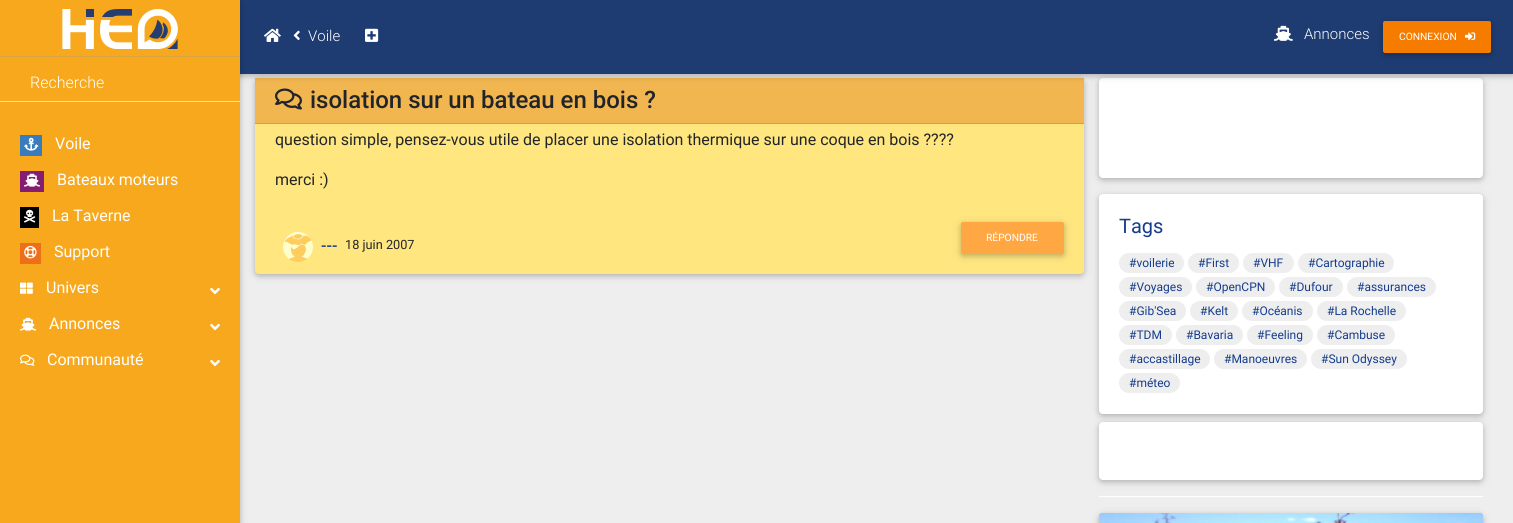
#include <cairo.h>
#include <math.h>
#include <stddef.h>


static void round_rect(cairo_t *cr, double x, double y, double w, double h, double r) {
    cairo_new_sub_path(cr);
    cairo_arc(cr, x + w - r, y + h - r, r, 0, M_PI / 2);
    cairo_arc(cr, x + r, y + h - r, r, M_PI / 2, M_PI);
    cairo_arc(cr, x + r, y + r, r, M_PI, 1.5 * M_PI);
    cairo_arc(cr, x + w - r, y + r, r, 1.5 * M_PI, 2 * M_PI);
    cairo_close_path(cr);
}

static void shadow(cairo_t *cr, double x, double y, double w, double h, double r, double blur, double alpha) {
    cairo_push_group_with_content(cr, CAIRO_CONTENT_ALPHA);
    cairo_set_operator(cr, CAIRO_OPERATOR_SOURCE);
    for (int i = 15; i >= -15 && fmin(w, h) + blur * i / 3 > 0; i -= 2) {
        double e = blur * i / 6;
        cairo_set_source_rgba(cr, 0, 0, 0, alpha * erfc((i - 1) / 8.5) / 2);
        round_rect(cr, x - e, y - e, w + 2 * e, h + 2 * e, fmax(0, fmin(r + e + blur * .6, fmin(w, h) / 2 + e)));
        cairo_fill(cr);
    }
    cairo_pattern_t *soft = cairo_pop_group(cr);
    cairo_mask(cr, soft);
    cairo_pattern_destroy(soft);
}

static void picture(cairo_t *cr, const char *path, double x, double y, double w, double h) {
    cairo_surface_t *image = cairo_image_surface_create_from_png(path);
    cairo_save(cr);
    cairo_set_source_surface(cr, image, x, y);
    cairo_rectangle(cr, x, y, w, h);
    cairo_fill(cr);
    cairo_restore(cr);
    cairo_surface_destroy(image);
}

int main(void) {
    cairo_surface_t *surface = cairo_image_surface_create(CAIRO_FORMAT_RGB24, 1513, 523);
    cairo_t *cr = cairo_create(surface);
    cairo_font_options_t *options = cairo_font_options_create();
    cairo_font_options_set_hint_metrics(options, CAIRO_HINT_METRICS_OFF);
    cairo_font_options_set_hint_style(options, CAIRO_HINT_STYLE_NONE);
    cairo_set_font_options(cr, options);
    cairo_set_miter_limit(cr, 4);
    cairo_set_source_rgb(cr, 0.933, 0.933, 0.933);
    cairo_paint(cr);
    cairo_set_source_rgb(cr, 0, 0, 0);
    shadow(cr, 255, 80, 829, 196, 4, 5, 0.12);
    shadow(cr, 255, 80, 829, 196, 4, 2.5, 0.16);
    cairo_set_source_rgb(cr, 1, 0.902, 0.498);
    round_rect(cr, 255, 78, 829, 196, 4);
    cairo_fill(cr);
    cairo_set_source_rgb(cr, 0.945, 0.714, 0.314);
    cairo_rectangle(cr, 255, 78, 829, 45);
    cairo_fill(cr);
    picture(cr, "img15.png", 275, 88, 27, 22);
    cairo_set_source_rgb(cr, 0.827, 0.624, 0.275);
    cairo_rectangle(cr, 255, 123, 829, 1);
    cairo_fill(cr);
    cairo_set_source_rgb(cr, 0, 0, 0);
    shadow(cr, 1099, 80, 384, 100, 4, 5, 0.12);
    shadow(cr, 1099, 80, 384, 100, 4, 2.5, 0.16);
    cairo_set_source_rgb(cr, 1, 1, 1);
    round_rect(cr, 1099, 78, 384, 100, 4);
    cairo_fill(cr);
    cairo_set_source_rgb(cr, 0, 0, 0);
    shadow(cr, 0, 2, 1513, 74, 0, 5, 0.12);
    shadow(cr, 0, 2, 1513, 74, 0, 2.5, 0.16);
    cairo_set_source_rgb(cr, 0.118, 0.235, 0.447);
    cairo_rectangle(cr, 240, 0, 1273, 74);
    cairo_fill(cr);
    picture(cr, "img1.png", 264, 28, 17, 14);
    picture(cr, "img2.png", 293, 30, 7, 10);
    cairo_select_font_face(cr, "Roboto Light", CAIRO_FONT_SLANT_NORMAL, CAIRO_FONT_WEIGHT_NORMAL);
    cairo_set_font_size(cr, 15);
    cairo_set_source_rgb(cr, 1, 1, 1);
    cairo_move_to(cr, 308, 41);
    cairo_show_text(cr, "Voile");
    picture(cr, "img3.png", 365, 28, 14, 14);
    picture(cr, "img4.png", 1274, 25, 19, 16);
    cairo_move_to(cr, 1304, 39);
    cairo_show_text(cr, "Annonces");
    cairo_set_source_rgb(cr, 0, 0, 0);
    shadow(cr, 1383, 23, 108, 32, 2, 5, 0.12);
    shadow(cr, 1383, 23, 108, 32, 2, 2.5, 0.16);
    cairo_set_source_rgb(cr, 0.961, 0.486, 0);
    round_rect(cr, 1383, 21, 108, 32, 2);
    cairo_fill(cr);
    cairo_select_font_face(cr, "Roboto", CAIRO_FONT_SLANT_NORMAL, CAIRO_FONT_WEIGHT_NORMAL);
    cairo_set_font_size(cr, 10.25);
    cairo_set_source_rgb(cr, 1, 1, 1);
    cairo_move_to(cr, 1399, 40);
    cairo_show_text(cr, "CONNEXION");
    picture(cr, "img5.png", 1465, 32, 11, 9);
    cairo_set_source_rgb(cr, 0, 0, 0);
    shadow(cr, 0, 2, 240, 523, 0, 5, 0.12);
    shadow(cr, 0, 2, 240, 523, 0, 2.5, 0.16);
    cairo_set_source_rgb(cr, 0.965, 0.659, 0.11);
    cairo_rectangle(cr, 0, 0, 240, 523);
    cairo_fill(cr);
    picture(cr, "img6.png", 62, 9, 116, 40);
    cairo_set_source_rgb(cr, 0.855, 0.643, 0.259);
    cairo_rectangle(cr, 0, 56, 240, 1);
    cairo_fill(cr);
    cairo_set_source_rgb(cr, 0.988, 0.882, 0.69);
    cairo_rectangle(cr, 0, 101, 240, 1);
    cairo_fill(cr);
    cairo_select_font_face(cr, "Roboto Light", CAIRO_FONT_SLANT_NORMAL, CAIRO_FONT_WEIGHT_NORMAL);
    cairo_set_font_size(cr, 16);
    cairo_set_source_rgb(cr, 1, 1, 1);
    cairo_move_to(cr, 30, 88);
    cairo_show_text(cr, "Recherche");
    cairo_set_source_rgb(cr, 0.224, 0.486, 0.741);
    cairo_rectangle(cr, 20, 135, 22, 21);
    cairo_fill(cr);
    picture(cr, "img7.png", 24, 137, 15, 14);
    cairo_select_font_face(cr, "Roboto", CAIRO_FONT_SLANT_NORMAL, CAIRO_FONT_WEIGHT_NORMAL);
    cairo_set_source_rgb(cr, 1, 1, 1);
    cairo_move_to(cr, 55, 149);
    cairo_show_text(cr, "Voile");
    cairo_set_source_rgb(cr, 0.522, 0.118, 0.447);
    cairo_rectangle(cr, 20, 171, 24, 21);
    cairo_fill(cr);
    picture(cr, "img8.png", 24, 173, 16, 14);
    cairo_set_source_rgb(cr, 1, 1, 1);
    cairo_move_to(cr, 57, 185);
    cairo_show_text(cr, "Bateaux moteurs");
    cairo_set_source_rgb(cr, 0, 0, 0);
    cairo_rectangle(cr, 20, 207, 19, 21);
    cairo_fill(cr);
    picture(cr, "img9.png", 24, 209, 12, 14);
    cairo_set_source_rgb(cr, 1, 1, 1);
    cairo_move_to(cr, 52, 221);
    cairo_show_text(cr, "La Taverne");
    cairo_set_source_rgb(cr, 0.933, 0.435, 0.102);
    cairo_rectangle(cr, 20, 243, 21, 21);
    cairo_fill(cr);
    picture(cr, "img10.png", 24, 246, 13, 13);
    cairo_set_source_rgb(cr, 1, 1, 1);
    cairo_move_to(cr, 54, 257);
    cairo_show_text(cr, "Support");
    picture(cr, "img11.png", 20, 282, 13, 12);
    cairo_move_to(cr, 46, 293);
    cairo_show_text(cr, "Univers");
    picture(cr, "img12.png", 210, 287, 10, 8);
    picture(cr, "img13.png", 20, 317, 16, 14);
    cairo_move_to(cr, 49, 329);
    cairo_show_text(cr, "Annonces");
    picture(cr, "img12.png", 210, 323, 10, 8);
    picture(cr, "img14.png", 20, 354, 15, 12);
    cairo_move_to(cr, 47, 365);
    cairo_show_text(cr, "Communauté");
    picture(cr, "img12.png", 210, 359, 10, 8);
    cairo_select_font_face(cr, "Roboto Medium", CAIRO_FONT_SLANT_NORMAL, CAIRO_FONT_WEIGHT_NORMAL);
    cairo_set_font_size(cr, 24);
    cairo_set_source_rgb(cr, 0.129, 0.145, 0.161);
    cairo_move_to(cr, 310, 108);
    cairo_show_text(cr, "isolation sur un bateau en bois ?");
    cairo_select_font_face(cr, "Roboto", CAIRO_FONT_SLANT_NORMAL, CAIRO_FONT_WEIGHT_NORMAL);
    cairo_set_font_size(cr, 16);
    cairo_move_to(cr, 275, 145);
    cairo_show_text(cr, "question simple, pensez-vous utile de placer une isolation thermique sur une coque en bois ?\077?\077");
    cairo_move_to(cr, 275, 185);
    cairo_show_text(cr, "merci :)");
    cairo_set_source_rgb(cr, 0, 0, 0);
    shadow(cr, 961, 224, 103, 32, 2, 5, 0.12);
    shadow(cr, 961, 224, 103, 32, 2, 2.5, 0.16);
    cairo_set_source_rgb(cr, 1, 0.655, 0.259);
    round_rect(cr, 961, 222, 103, 32, 2);
    cairo_fill(cr);
    cairo_set_font_size(cr, 10.25);
    cairo_set_source_rgb(cr, 1, 1, 1);
    cairo_move_to(cr, 986, 241);
    cairo_show_text(cr, "RÉPONDRE");
    picture(cr, "img16.png", 283, 232, 30, 30);
    cairo_select_font_face(cr, "Roboto Medium", CAIRO_FONT_SLANT_NORMAL, CAIRO_FONT_WEIGHT_NORMAL);
    cairo_set_font_size(cr, 16);
    cairo_set_source_rgb(cr, 0.082, 0.235, 0.549);
    cairo_move_to(cr, 321, 251);
    cairo_show_text(cr, "---");
    cairo_select_font_face(cr, "Roboto", CAIRO_FONT_SLANT_NORMAL, CAIRO_FONT_WEIGHT_NORMAL);
    cairo_set_font_size(cr, 12.75);
    cairo_set_source_rgb(cr, 0.129, 0.145, 0.161);
    cairo_move_to(cr, 345, 249);
    cairo_show_text(cr, "18 juin 2007");
    cairo_set_source_rgb(cr, 0, 0, 0);
    shadow(cr, 1099, 196, 384, 220, 4, 5, 0.12);
    shadow(cr, 1099, 196, 384, 220, 4, 2.5, 0.16);
    cairo_set_source_rgb(cr, 1, 1, 1);
    round_rect(cr, 1099, 194, 384, 220, 4);
    cairo_fill(cr);
    cairo_set_font_size(cr, 20);
    cairo_set_source_rgb(cr, 0.082, 0.235, 0.549);
    cairo_move_to(cr, 1119, 233);
    cairo_show_text(cr, "Tags");
    cairo_set_source_rgb(cr, 0.933, 0.933, 0.933);
    round_rect(cr, 1119, 253, 65, 20, 10);
    cairo_fill(cr);
    cairo_set_font_size(cr, 12);
    cairo_set_source_rgb(cr, 0.082, 0.235, 0.549);
    cairo_move_to(cr, 1129, 267);
    cairo_show_text(cr, "#voilerie");
    cairo_set_source_rgb(cr, 0.933, 0.933, 0.933);
    round_rect(cr, 1188, 253, 51, 20, 10);
    cairo_fill(cr);
    cairo_set_source_rgb(cr, 0.082, 0.235, 0.549);
    cairo_move_to(cr, 1198, 267);
    cairo_show_text(cr, "#First");
    cairo_set_source_rgb(cr, 0.933, 0.933, 0.933);
    round_rect(cr, 1243, 253, 51, 20, 10);
    cairo_fill(cr);
    cairo_set_source_rgb(cr, 0.082, 0.235, 0.549);
    cairo_move_to(cr, 1253, 267);
    cairo_show_text(cr, "#VHF");
    cairo_set_source_rgb(cr, 0.933, 0.933, 0.933);
    round_rect(cr, 1298, 253, 96, 20, 10);
    cairo_fill(cr);
    cairo_set_source_rgb(cr, 0.082, 0.235, 0.549);
    cairo_move_to(cr, 1308, 267);
    cairo_show_text(cr, "#Cartographie");
    cairo_set_source_rgb(cr, 0.933, 0.933, 0.933);
    round_rect(cr, 1119, 277, 73, 20, 10);
    cairo_fill(cr);
    cairo_set_source_rgb(cr, 0.082, 0.235, 0.549);
    cairo_move_to(cr, 1129, 291);
    cairo_show_text(cr, "#Voyages");
    cairo_set_source_rgb(cr, 0.933, 0.933, 0.933);
    round_rect(cr, 1196, 277, 79, 20, 10);
    cairo_fill(cr);
    cairo_set_source_rgb(cr, 0.082, 0.235, 0.549);
    cairo_move_to(cr, 1206, 291);
    cairo_show_text(cr, "#OpenCPN");
    cairo_set_source_rgb(cr, 0.933, 0.933, 0.933);
    round_rect(cr, 1279, 277, 64, 20, 10);
    cairo_fill(cr);
    cairo_set_source_rgb(cr, 0.082, 0.235, 0.549);
    cairo_move_to(cr, 1289, 291);
    cairo_show_text(cr, "#Dufour");
    cairo_set_source_rgb(cr, 0.933, 0.933, 0.933);
    round_rect(cr, 1347, 277, 89, 20, 10);
    cairo_fill(cr);
    cairo_set_source_rgb(cr, 0.082, 0.235, 0.549);
    cairo_move_to(cr, 1357, 291);
    cairo_show_text(cr, "#assurances");
    cairo_set_source_rgb(cr, 0.933, 0.933, 0.933);
    round_rect(cr, 1119, 301, 67, 20, 10);
    cairo_fill(cr);
    cairo_set_source_rgb(cr, 0.082, 0.235, 0.549);
    cairo_move_to(cr, 1129, 315);
    cairo_show_text(cr, "#Gib'Sea");
    cairo_set_source_rgb(cr, 0.933, 0.933, 0.933);
    round_rect(cr, 1190, 301, 48, 20, 10);
    cairo_fill(cr);
    cairo_set_source_rgb(cr, 0.082, 0.235, 0.549);
    cairo_move_to(cr, 1200, 315);
    cairo_show_text(cr, "#Kelt");
    cairo_set_source_rgb(cr, 0.933, 0.933, 0.933);
    round_rect(cr, 1242, 301, 71, 20, 10);
    cairo_fill(cr);
    cairo_set_source_rgb(cr, 0.082, 0.235, 0.549);
    cairo_move_to(cr, 1252, 315);
    cairo_show_text(cr, "#Océanis");
    cairo_set_source_rgb(cr, 0.933, 0.933, 0.933);
    round_rect(cr, 1317, 301, 89, 20, 10);
    cairo_fill(cr);
    cairo_set_source_rgb(cr, 0.082, 0.235, 0.549);
    cairo_move_to(cr, 1327, 315);
    cairo_show_text(cr, "#La Rochelle");
    cairo_set_source_rgb(cr, 0.933, 0.933, 0.933);
    round_rect(cr, 1119, 325, 53, 20, 10);
    cairo_fill(cr);
    cairo_set_source_rgb(cr, 0.082, 0.235, 0.549);
    cairo_move_to(cr, 1129, 339);
    cairo_show_text(cr, "#TDM");
    cairo_set_source_rgb(cr, 0.933, 0.933, 0.933);
    round_rect(cr, 1176, 325, 67, 20, 10);
    cairo_fill(cr);
    cairo_set_source_rgb(cr, 0.082, 0.235, 0.549);
    cairo_move_to(cr, 1186, 339);
    cairo_show_text(cr, "#Bavaria");
    cairo_set_source_rgb(cr, 0.933, 0.933, 0.933);
    round_rect(cr, 1247, 325, 66, 20, 10);
    cairo_fill(cr);
    cairo_set_source_rgb(cr, 0.082, 0.235, 0.549);
    cairo_move_to(cr, 1257, 339);
    cairo_show_text(cr, "#Feeling");
    cairo_set_source_rgb(cr, 0.933, 0.933, 0.933);
    round_rect(cr, 1317, 325, 78, 20, 10);
    cairo_fill(cr);
    cairo_set_source_rgb(cr, 0.082, 0.235, 0.549);
    cairo_move_to(cr, 1327, 339);
    cairo_show_text(cr, "#Cambuse");
    cairo_set_source_rgb(cr, 0.933, 0.933, 0.933);
    round_rect(cr, 1119, 349, 91, 20, 10);
    cairo_fill(cr);
    cairo_set_source_rgb(cr, 0.082, 0.235, 0.549);
    cairo_move_to(cr, 1129, 363);
    cairo_show_text(cr, "#accastillage");
    cairo_set_source_rgb(cr, 0.933, 0.933, 0.933);
    round_rect(cr, 1214, 349, 93, 20, 10);
    cairo_fill(cr);
    cairo_set_source_rgb(cr, 0.082, 0.235, 0.549);
    cairo_move_to(cr, 1224, 363);
    cairo_show_text(cr, "#Manoeuvres");
    cairo_set_source_rgb(cr, 0.933, 0.933, 0.933);
    round_rect(cr, 1311, 349, 96, 20, 10);
    cairo_fill(cr);
    cairo_set_source_rgb(cr, 0.082, 0.235, 0.549);
    cairo_move_to(cr, 1321, 363);
    cairo_show_text(cr, "#Sun Odyssey");
    cairo_set_source_rgb(cr, 0.933, 0.933, 0.933);
    round_rect(cr, 1119, 373, 61, 20, 10);
    cairo_fill(cr);
    cairo_set_source_rgb(cr, 0.082, 0.235, 0.549);
    cairo_move_to(cr, 1129, 387);
    cairo_show_text(cr, "#méteo");
    cairo_set_source_rgb(cr, 0, 0, 0);
    shadow(cr, 1099, 424, 384, 58, 4, 5, 0.12);
    shadow(cr, 1099, 424, 384, 58, 4, 2.5, 0.16);
    cairo_set_source_rgb(cr, 1, 1, 1);
    round_rect(cr, 1099, 422, 384, 58, 4);
    cairo_fill(cr);
    round_rect(cr, 1099, 496, 384, 1, 0.5);
    cairo_fill(cr);
    cairo_set_source_rgb(cr, 0, 0, 0);
    shadow(cr, 1099, 515, 384, 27, 4, 5, 0.12);
    shadow(cr, 1099, 515, 384, 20, 4, 2.5, 0.16);
    picture(cr, "img17.png", 1099, 513, 384, 10);
    cairo_surface_write_to_png(surface, "page.png");
    cairo_font_options_destroy(options);
    cairo_destroy(cr);
    cairo_surface_destroy(surface);
    return 0;
}
